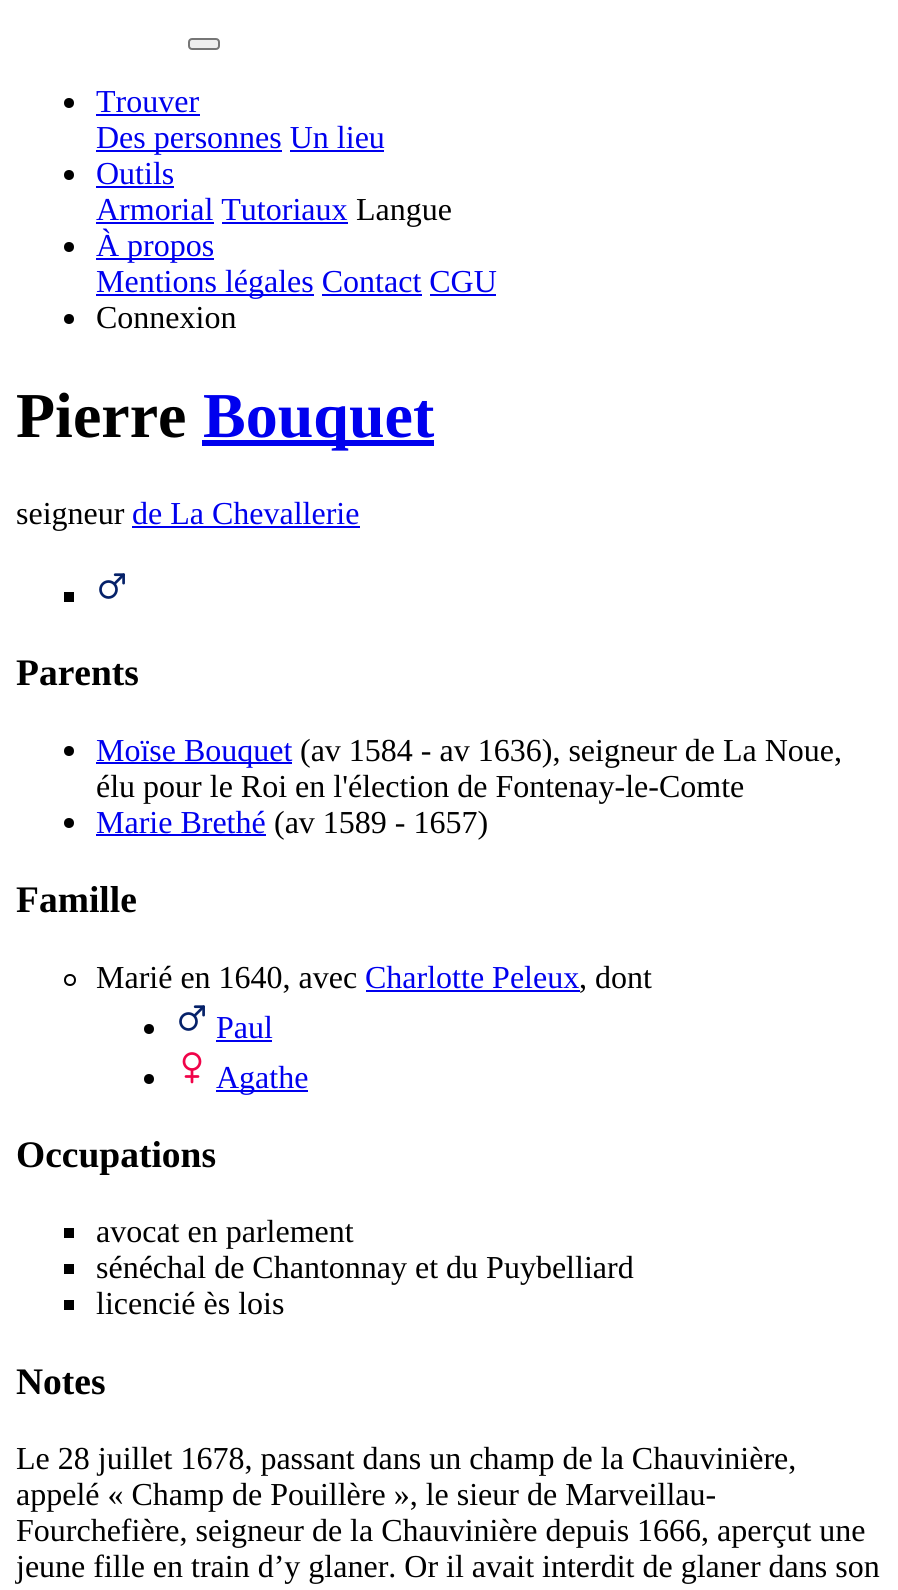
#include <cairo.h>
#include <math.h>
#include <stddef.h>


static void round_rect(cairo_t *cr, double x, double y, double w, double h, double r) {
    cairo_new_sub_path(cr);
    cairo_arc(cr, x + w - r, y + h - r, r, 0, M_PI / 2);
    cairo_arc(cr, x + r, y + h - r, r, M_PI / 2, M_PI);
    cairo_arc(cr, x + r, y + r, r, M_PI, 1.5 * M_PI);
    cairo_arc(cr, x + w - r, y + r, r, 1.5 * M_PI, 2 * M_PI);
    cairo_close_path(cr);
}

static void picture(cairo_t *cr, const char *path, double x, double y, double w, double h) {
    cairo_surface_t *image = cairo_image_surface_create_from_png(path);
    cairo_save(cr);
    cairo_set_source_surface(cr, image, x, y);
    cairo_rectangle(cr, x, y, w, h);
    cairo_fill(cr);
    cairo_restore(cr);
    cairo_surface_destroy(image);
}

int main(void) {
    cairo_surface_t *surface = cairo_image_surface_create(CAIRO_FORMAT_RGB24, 898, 1590);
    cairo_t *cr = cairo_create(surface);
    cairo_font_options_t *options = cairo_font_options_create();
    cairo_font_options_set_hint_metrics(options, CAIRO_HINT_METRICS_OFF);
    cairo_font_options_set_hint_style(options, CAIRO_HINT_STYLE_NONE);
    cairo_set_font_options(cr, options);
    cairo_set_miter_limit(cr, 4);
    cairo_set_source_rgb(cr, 1, 1, 1);
    cairo_paint(cr);
    cairo_set_source_rgb(cr, 0.937, 0.937, 0.937);
    round_rect(cr, 189, 39, 30, 10, 3);
    cairo_fill_preserve(cr);
    cairo_set_source_rgb(cr, 0.463, 0.463, 0.463);
    cairo_stroke(cr);
    cairo_set_source_rgb(cr, 0, 0, 0);
    cairo_arc(cr, 69, 103, 5, 0, 2 * M_PI);
    cairo_fill(cr);
    cairo_select_font_face(cr, "Liberation Serif", CAIRO_FONT_SLANT_NORMAL, CAIRO_FONT_WEIGHT_NORMAL);
    cairo_set_font_size(cr, 32);
    cairo_set_source_rgb(cr, 0, 0, 0.933);
    cairo_move_to(cr, 96, 112);
    cairo_show_text(cr, "Trouver");
    cairo_rectangle(cr, 96, 114, 104, 2);
    cairo_fill(cr);
    cairo_rectangle(cr, 96, 150, 186, 2);
    cairo_fill(cr);
    cairo_move_to(cr, 96, 148);
    cairo_show_text(cr, "Des personnes Un lieu");
    cairo_rectangle(cr, 290, 150, 94, 2);
    cairo_fill(cr);
    cairo_set_source_rgb(cr, 0, 0, 0);
    cairo_arc(cr, 69, 175, 5, 0, 2 * M_PI);
    cairo_fill(cr);
    cairo_set_source_rgb(cr, 0, 0, 0.933);
    cairo_move_to(cr, 96, 184);
    cairo_show_text(cr, "Outils");
    cairo_rectangle(cr, 96, 186, 78, 2);
    cairo_fill(cr);
    cairo_move_to(cr, 96, 220);
    cairo_show_text(cr, "Armorial Tutoriaux");
    cairo_rectangle(cr, 96, 222, 118, 2);
    cairo_fill(cr);
    cairo_set_source_rgb(cr, 0, 0, 0);
    cairo_move_to(cr, 356, 220);
    cairo_show_text(cr, "Langue");
    cairo_set_source_rgb(cr, 0, 0, 0.933);
    cairo_rectangle(cr, 222, 222, 126, 2);
    cairo_fill(cr);
    cairo_set_source_rgb(cr, 0, 0, 0);
    cairo_arc(cr, 69, 247, 5, 0, 2 * M_PI);
    cairo_fill(cr);
    cairo_set_source_rgb(cr, 0, 0, 0.933);
    cairo_rectangle(cr, 96, 258, 118, 2);
    cairo_fill(cr);
    cairo_move_to(cr, 96, 256);
    cairo_show_text(cr, "À propos");
    cairo_rectangle(cr, 96, 294, 218, 2);
    cairo_fill(cr);
    cairo_move_to(cr, 96, 292);
    cairo_show_text(cr, "Mentions légales Contact CGU");
    cairo_rectangle(cr, 322, 294, 100, 2);
    cairo_fill(cr);
    cairo_rectangle(cr, 430, 294, 66, 2);
    cairo_fill(cr);
    cairo_set_source_rgb(cr, 0, 0, 0);
    cairo_arc(cr, 69, 319, 5, 0, 2 * M_PI);
    cairo_fill(cr);
    cairo_move_to(cr, 96, 328);
    cairo_show_text(cr, "Connexion");
    cairo_select_font_face(cr, "Liberation Serif", CAIRO_FONT_SLANT_NORMAL, CAIRO_FONT_WEIGHT_BOLD);
    cairo_set_font_size(cr, 64);
    cairo_move_to(cr, 16, 437);
    cairo_show_text(cr, "Pierre");
    cairo_set_source_rgb(cr, 0, 0, 0.933);
    cairo_rectangle(cr, 202, 440, 232, 6);
    cairo_fill(cr);
    cairo_move_to(cr, 203, 437);
    cairo_show_text(cr, "Bouquet");
    cairo_select_font_face(cr, "Liberation Serif", CAIRO_FONT_SLANT_NORMAL, CAIRO_FONT_WEIGHT_NORMAL);
    cairo_set_font_size(cr, 32);
    cairo_set_source_rgb(cr, 0, 0, 0);
    cairo_move_to(cr, 16, 524);
    cairo_show_text(cr, "seigneur");
    cairo_set_source_rgb(cr, 0, 0, 0.933);
    cairo_move_to(cr, 132, 524);
    cairo_show_text(cr, "de La Chevallerie");
    cairo_rectangle(cr, 132, 526, 228, 2);
    cairo_fill(cr);
    cairo_set_source_rgb(cr, 0, 0, 0);
    cairo_rectangle(cr, 64, 592, 10, 10);
    cairo_fill(cr);
    picture(cr, "img1.png", 99, 573, 26, 26);
    cairo_select_font_face(cr, "Liberation Serif", CAIRO_FONT_SLANT_NORMAL, CAIRO_FONT_WEIGHT_BOLD);
    cairo_set_font_size(cr, 37.5);
    cairo_move_to(cr, 16, 685);
    cairo_show_text(cr, "Parents");
    cairo_new_path(cr);
    cairo_arc(cr, 69, 751, 5, 0, 2 * M_PI);
    cairo_fill(cr);
    cairo_set_source_rgb(cr, 0, 0, 0.933);
    cairo_rectangle(cr, 96, 762, 196, 2);
    cairo_fill(cr);
    cairo_select_font_face(cr, "Liberation Serif", CAIRO_FONT_SLANT_NORMAL, CAIRO_FONT_WEIGHT_NORMAL);
    cairo_set_font_size(cr, 32);
    cairo_move_to(cr, 96, 761);
    cairo_show_text(cr, "Moïse Bouquet");
    cairo_set_source_rgb(cr, 0, 0, 0);
    cairo_move_to(cr, 300, 761);
    cairo_show_text(cr, "(av 1584 - av 1636), seigneur de La Noue,");
    cairo_move_to(cr, 96, 797);
    cairo_show_text(cr, "élu pour le Roi en l'élection de Fontenay-le-Comte");
    cairo_new_path(cr);
    cairo_arc(cr, 69, 823, 5, 0, 2 * M_PI);
    cairo_fill(cr);
    cairo_set_source_rgb(cr, 0, 0, 0.933);
    cairo_move_to(cr, 96, 833);
    cairo_show_text(cr, "Marie Brethé");
    cairo_rectangle(cr, 96, 834, 170, 2);
    cairo_fill(cr);
    cairo_set_source_rgb(cr, 0, 0, 0);
    cairo_move_to(cr, 274, 833);
    cairo_show_text(cr, "(av 1589 - 1657)");
    cairo_select_font_face(cr, "Liberation Serif", CAIRO_FONT_SLANT_NORMAL, CAIRO_FONT_WEIGHT_BOLD);
    cairo_set_font_size(cr, 37.5);
    cairo_move_to(cr, 16, 912);
    cairo_show_text(cr, "Famille");
    cairo_new_path(cr);
    cairo_arc(cr, 70, 980, 5, 0, 2 * M_PI);
    cairo_stroke(cr);
    cairo_select_font_face(cr, "Liberation Serif", CAIRO_FONT_SLANT_NORMAL, CAIRO_FONT_WEIGHT_NORMAL);
    cairo_set_font_size(cr, 32);
    cairo_move_to(cr, 96, 988);
    cairo_show_text(cr, "Marié en 1640, avec");
    cairo_set_source_rgb(cr, 0, 0, 0.933);
    cairo_move_to(cr, 365, 988);
    cairo_show_text(cr, "Charlotte Peleux");
    cairo_rectangle(cr, 366, 990, 214, 2);
    cairo_fill(cr);
    cairo_set_source_rgb(cr, 0, 0, 0);
    cairo_move_to(cr, 579, 988);
    cairo_show_text(cr, ", dont");
    cairo_new_path(cr);
    cairo_arc(cr, 149, 1029, 5, 0, 2 * M_PI);
    cairo_fill(cr);
    picture(cr, "img1.png", 179, 1005, 26, 26);
    cairo_set_source_rgb(cr, 0, 0, 0.933);
    cairo_move_to(cr, 216, 1038);
    cairo_show_text(cr, "Paul");
    cairo_rectangle(cr, 216, 1040, 56, 2);
    cairo_fill(cr);
    cairo_arc(cr, 192, 1061.5, 8, 0, 2 * M_PI);
    cairo_set_source_rgb(cr, 0.941, 0.012, 0.286);
    cairo_set_line_width(cr, 2.7);
    cairo_stroke(cr);
    cairo_set_source_rgb(cr, 0, 0, 0);
    cairo_arc(cr, 149, 1079, 5, 0, 2 * M_PI);
    cairo_fill(cr);
    cairo_new_path(cr);
    cairo_move_to(cr, 192, 1070);
    cairo_line_to(cr, 192, 1082);
    cairo_move_to(cr, 186, 1076.5);
    cairo_line_to(cr, 198, 1076.5);
    cairo_set_source_rgb(cr, 0.941, 0.012, 0.286);
    cairo_set_line_cap(cr, CAIRO_LINE_CAP_ROUND);
    cairo_set_line_join(cr, CAIRO_LINE_JOIN_ROUND);
    cairo_stroke(cr);
    cairo_set_source_rgb(cr, 0, 0, 0.933);
    cairo_rectangle(cr, 216, 1090, 92, 2);
    cairo_fill(cr);
    cairo_move_to(cr, 216, 1088);
    cairo_show_text(cr, "Agathe");
    cairo_select_font_face(cr, "Liberation Serif", CAIRO_FONT_SLANT_NORMAL, CAIRO_FONT_WEIGHT_BOLD);
    cairo_set_font_size(cr, 37.5);
    cairo_set_source_rgb(cr, 0, 0, 0);
    cairo_move_to(cr, 16, 1167);
    cairo_show_text(cr, "Occupations");
    cairo_rectangle(cr, 64, 1228, 10, 10);
    cairo_fill(cr);
    cairo_select_font_face(cr, "Liberation Serif", CAIRO_FONT_SLANT_NORMAL, CAIRO_FONT_WEIGHT_NORMAL);
    cairo_set_font_size(cr, 32);
    cairo_move_to(cr, 96, 1242);
    cairo_show_text(cr, "avocat en parlement");
    cairo_rectangle(cr, 64, 1264, 10, 10);
    cairo_fill(cr);
    cairo_move_to(cr, 96, 1278);
    cairo_show_text(cr, "sénéchal de Chantonnay et du Puybelliard");
    cairo_rectangle(cr, 64, 1300, 10, 10);
    cairo_fill(cr);
    cairo_move_to(cr, 96, 1314);
    cairo_show_text(cr, "licencié ès lois");
    cairo_select_font_face(cr, "Liberation Serif", CAIRO_FONT_SLANT_NORMAL, CAIRO_FONT_WEIGHT_BOLD);
    cairo_set_font_size(cr, 37.5);
    cairo_move_to(cr, 16, 1394);
    cairo_show_text(cr, "Notes");
    cairo_select_font_face(cr, "Liberation Serif", CAIRO_FONT_SLANT_NORMAL, CAIRO_FONT_WEIGHT_NORMAL);
    cairo_set_font_size(cr, 32);
    cairo_move_to(cr, 16, 1469);
    cairo_show_text(cr, "Le 28 juillet 1678, passant dans un champ de la Chauvinière,");
    cairo_move_to(cr, 16, 1505);
    cairo_show_text(cr, "appelé « Champ de Pouillère », le sieur de Marveillau-");
    cairo_move_to(cr, 16, 1541);
    cairo_show_text(cr, "Fourchefière, seigneur de la Chauvinière depuis 1666, aperçut une");
    cairo_move_to(cr, 16, 1577);
    cairo_show_text(cr, "jeune fille en train d’y glaner. Or il avait interdit de glaner dans son");
    cairo_surface_write_to_png(surface, "page.png");
    cairo_font_options_destroy(options);
    cairo_destroy(cr);
    cairo_surface_destroy(surface);
    return 0;
}
